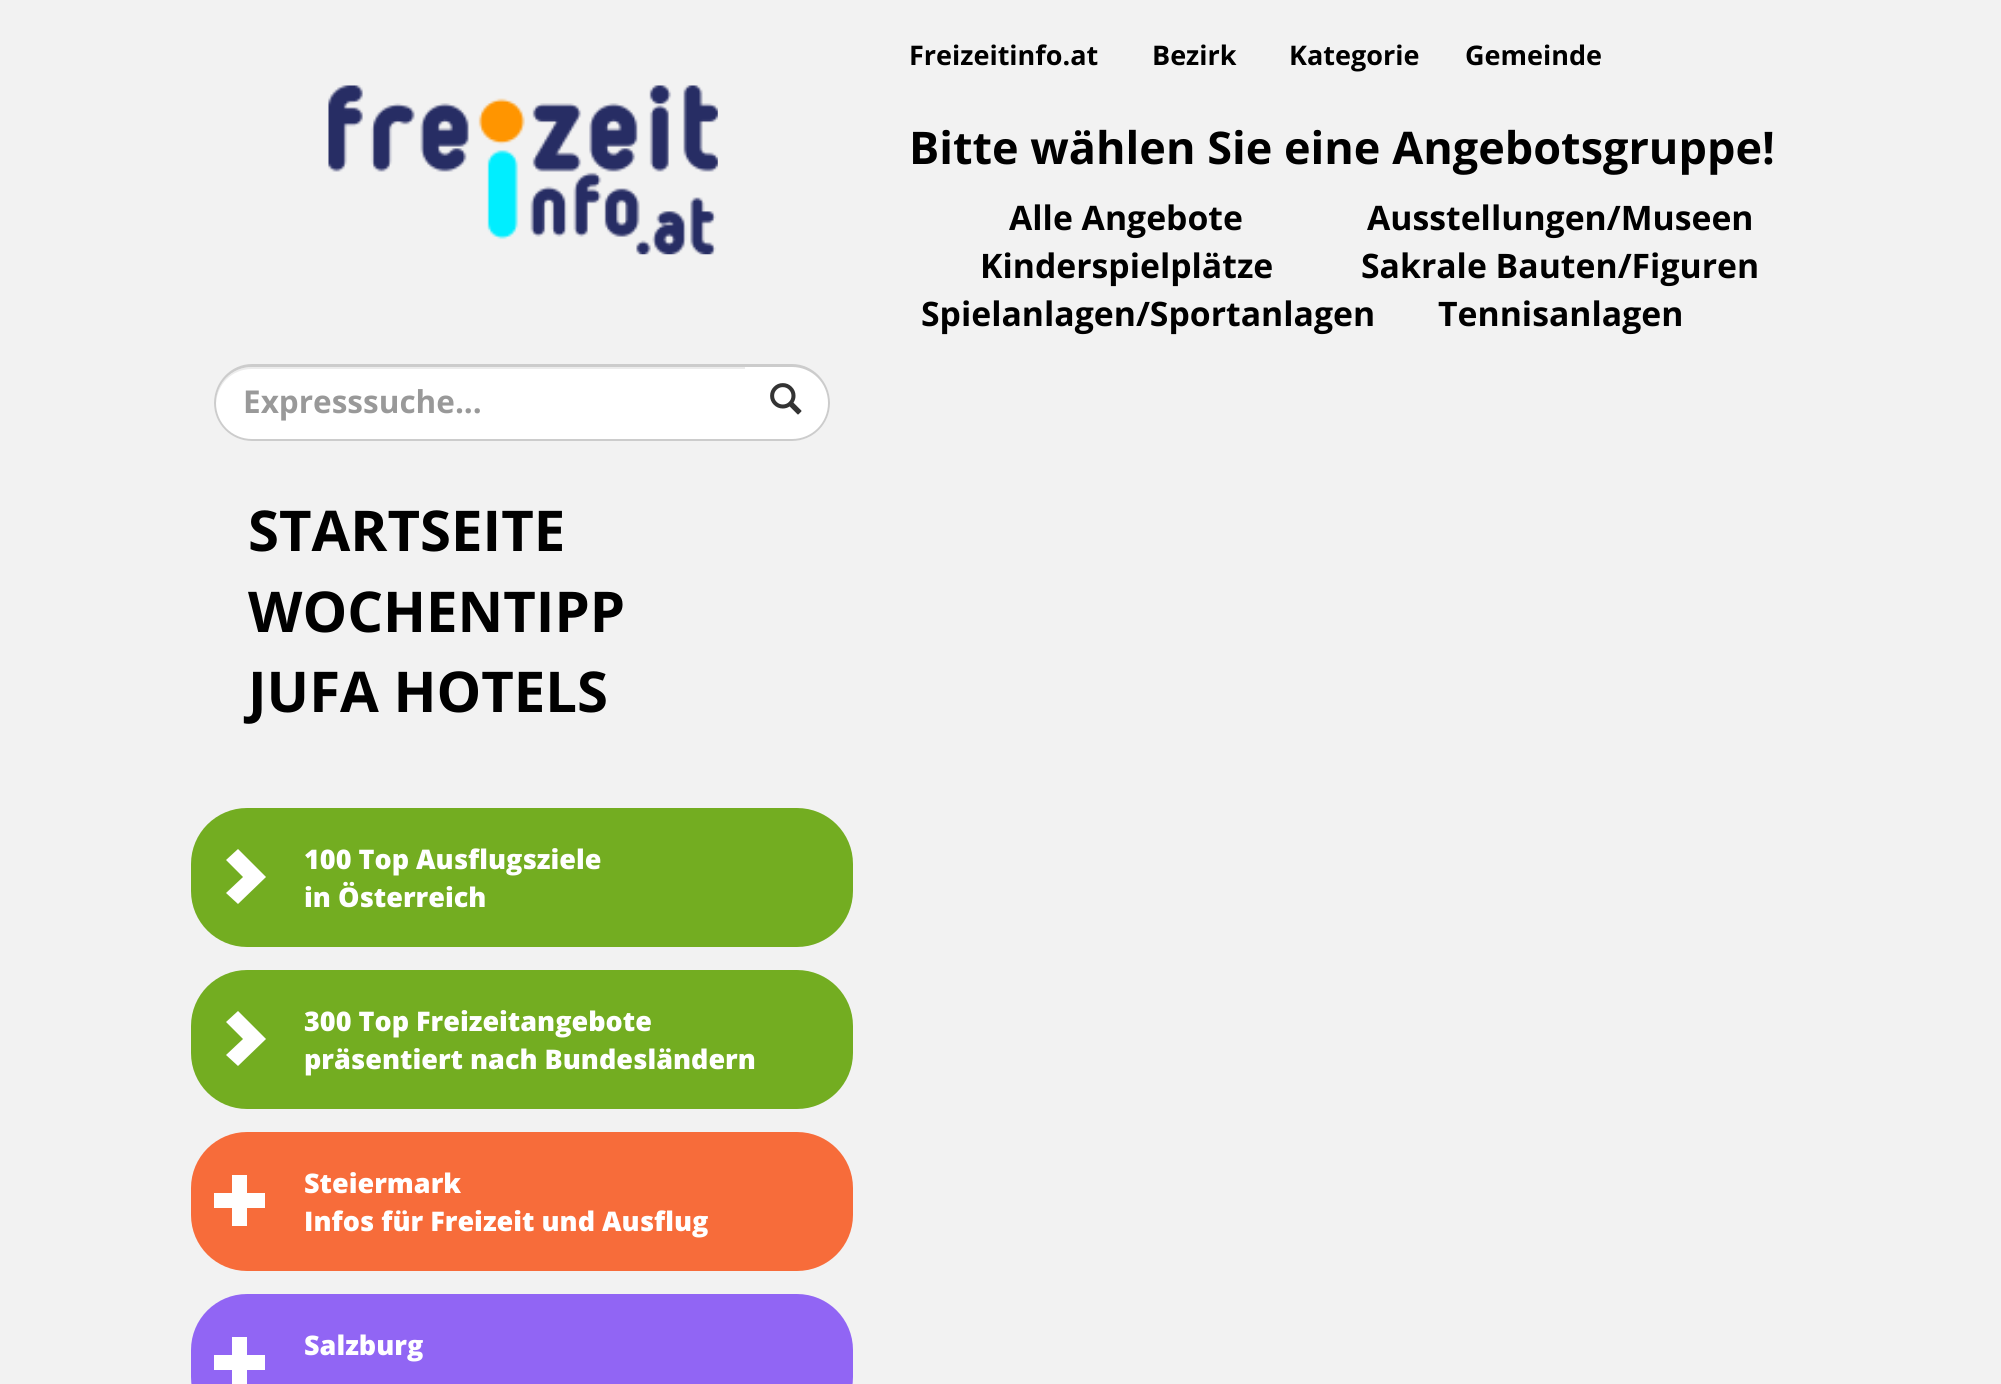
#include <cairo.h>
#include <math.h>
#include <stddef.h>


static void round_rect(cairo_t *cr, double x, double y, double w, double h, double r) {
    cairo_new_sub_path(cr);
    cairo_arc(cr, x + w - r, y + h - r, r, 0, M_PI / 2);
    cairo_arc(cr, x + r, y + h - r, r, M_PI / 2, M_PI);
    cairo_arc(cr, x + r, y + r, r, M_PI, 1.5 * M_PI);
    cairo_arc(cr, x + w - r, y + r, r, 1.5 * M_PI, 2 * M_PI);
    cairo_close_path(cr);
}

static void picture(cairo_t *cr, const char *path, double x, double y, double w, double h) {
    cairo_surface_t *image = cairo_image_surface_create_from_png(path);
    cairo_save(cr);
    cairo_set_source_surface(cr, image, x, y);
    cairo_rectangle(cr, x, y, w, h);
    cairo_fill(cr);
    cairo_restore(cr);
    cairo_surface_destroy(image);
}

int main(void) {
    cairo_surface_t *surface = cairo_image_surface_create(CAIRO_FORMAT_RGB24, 2001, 1384);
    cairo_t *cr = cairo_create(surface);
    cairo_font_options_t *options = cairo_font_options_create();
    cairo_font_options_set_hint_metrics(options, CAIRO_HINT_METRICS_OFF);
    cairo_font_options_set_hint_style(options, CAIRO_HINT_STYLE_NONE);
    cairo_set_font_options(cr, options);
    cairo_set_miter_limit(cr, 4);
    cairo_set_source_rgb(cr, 0.949, 0.949, 0.949);
    cairo_paint(cr);
    cairo_select_font_face(cr, "Open Sans", CAIRO_FONT_SLANT_NORMAL, CAIRO_FONT_WEIGHT_BOLD);
    cairo_set_font_size(cr, 27);
    cairo_set_source_rgb(cr, 0, 0, 0);
    cairo_move_to(cr, 909, 65);
    cairo_show_text(cr, "Freizeitinfo.at");
    cairo_move_to(cr, 1152, 65);
    cairo_show_text(cr, "Bezirk");
    cairo_move_to(cr, 1289, 65);
    cairo_show_text(cr, "Kategorie");
    cairo_move_to(cr, 1465, 65);
    cairo_show_text(cr, "Gemeinde");
    cairo_set_font_size(cr, 45);
    cairo_move_to(cr, 909, 164);
    cairo_show_text(cr, "Bitte wählen Sie eine Angebotsgruppe!");
    cairo_set_font_size(cr, 33.75);
    cairo_move_to(cr, 1009, 230);
    cairo_show_text(cr, "Alle Angebote");
    cairo_move_to(cr, 1367, 230);
    cairo_show_text(cr, "Ausstellungen/Museen");
    cairo_move_to(cr, 980, 278);
    cairo_show_text(cr, "Kinderspielplätze");
    cairo_move_to(cr, 1361, 278);
    cairo_show_text(cr, "Sakrale Bauten/Figuren");
    cairo_move_to(cr, 921, 326);
    cairo_show_text(cr, "Spielanlagen/Sportanlagen");
    cairo_move_to(cr, 1438, 326);
    cairo_show_text(cr, "Tennisanlagen");
    picture(cr, "img1.png", 328, 85, 390, 170);
    cairo_set_source_rgb(cr, 1, 1, 1);
    cairo_new_path(cr);
    cairo_move_to(cr, 743, 365);
    cairo_line_to(cr, 792, 365);
    cairo_curve_to(cr, 813, 365, 830, 382, 830, 403);
    cairo_curve_to(cr, 830, 424, 813, 441, 792, 441);
    cairo_line_to(cr, 743, 441);
    cairo_close_path(cr);
    cairo_fill(cr);
    cairo_set_source_rgb(cr, 0.8, 0.8, 0.8);
    cairo_set_fill_rule(cr, CAIRO_FILL_RULE_EVEN_ODD);
    cairo_new_path(cr);
    cairo_move_to(cr, 742, 364);
    cairo_line_to(cr, 792, 364);
    cairo_curve_to(cr, 813, 364, 830, 382, 830, 403);
    cairo_curve_to(cr, 830, 424, 813, 441, 792, 441);
    cairo_line_to(cr, 742, 441);
    cairo_close_path(cr);
    cairo_move_to(cr, 742, 367);
    cairo_line_to(cr, 792, 367);
    cairo_curve_to(cr, 812, 367, 828, 383, 828, 403);
    cairo_curve_to(cr, 828, 423, 812, 439, 792, 439);
    cairo_line_to(cr, 742, 439);
    cairo_close_path(cr);
    cairo_fill(cr);
    cairo_set_source_rgb(cr, 1, 1, 1);
    cairo_new_path(cr);
    cairo_move_to(cr, 252, 365);
    cairo_line_to(cr, 745, 365);
    cairo_line_to(cr, 745, 441);
    cairo_line_to(cr, 252, 441);
    cairo_curve_to(cr, 231, 441, 214, 424, 214, 403);
    cairo_curve_to(cr, 214, 382, 231, 365, 252, 365);
    cairo_close_path(cr);
    cairo_fill(cr);
    cairo_set_source_rgb(cr, 0.925, 0.925, 0.925);
    cairo_set_fill_rule(cr, CAIRO_FILL_RULE_WINDING);
    cairo_new_path(cr);
    cairo_move_to(cr, 252, 369);
    cairo_line_to(cr, 745, 369);
    cairo_line_to(cr, 745, 367);
    cairo_line_to(cr, 252, 367);
    cairo_curve_to(cr, 232, 367, 215, 384, 216, 404);
    cairo_curve_to(cr, 217, 384, 232, 369, 252, 369);
    cairo_close_path(cr);
    cairo_fill(cr);
    cairo_set_source_rgb(cr, 0.8, 0.8, 0.8);
    cairo_set_fill_rule(cr, CAIRO_FILL_RULE_EVEN_ODD);
    cairo_new_path(cr);
    cairo_move_to(cr, 252, 364);
    cairo_line_to(cr, 745, 364);
    cairo_line_to(cr, 745, 441);
    cairo_line_to(cr, 252, 441);
    cairo_curve_to(cr, 231, 441, 214, 424, 214, 403);
    cairo_curve_to(cr, 214, 382, 231, 364, 252, 364);
    cairo_close_path(cr);
    cairo_move_to(cr, 252, 367);
    cairo_line_to(cr, 745, 367);
    cairo_line_to(cr, 745, 439);
    cairo_line_to(cr, 252, 439);
    cairo_curve_to(cr, 232, 439, 216, 423, 216, 403);
    cairo_curve_to(cr, 216, 383, 232, 367, 252, 367);
    cairo_close_path(cr);
    cairo_fill(cr);
    cairo_set_font_size(cr, 31.5);
    cairo_set_source_rgb(cr, 0.6, 0.6, 0.6);
    cairo_move_to(cr, 243, 413);
    cairo_show_text(cr, "Expresssuche...");
    picture(cr, "img2.png", 770, 383, 32, 32);
    cairo_set_font_size(cr, 56.25);
    cairo_set_source_rgb(cr, 0, 0, 0);
    cairo_move_to(cr, 248, 551);
    cairo_show_text(cr, "STARTSEITE");
    cairo_move_to(cr, 248, 632);
    cairo_show_text(cr, "WOCHENTIPP");
    cairo_move_to(cr, 248, 712);
    cairo_show_text(cr, "JUFA HOTELS");
    cairo_set_source_rgb(cr, 0.451, 0.678, 0.129);
    round_rect(cr, 191, 808, 662, 139, 56);
    cairo_fill(cr);
    cairo_set_source_rgb(cr, 1, 1, 1);
    cairo_set_fill_rule(cr, CAIRO_FILL_RULE_WINDING);
    cairo_new_path(cr);
    cairo_move_to(cr, 226, 893);
    cairo_line_to(cr, 243, 877);
    cairo_line_to(cr, 226, 860);
    cairo_line_to(cr, 238, 849);
    cairo_line_to(cr, 266, 877);
    cairo_line_to(cr, 238, 904);
    cairo_close_path(cr);
    cairo_fill(cr);
    cairo_select_font_face(cr, "Open Sans ExtraBold", CAIRO_FONT_SLANT_NORMAL, CAIRO_FONT_WEIGHT_NORMAL);
    cairo_set_font_size(cr, 27);
    cairo_move_to(cr, 304, 869);
    cairo_show_text(cr, "100 Top Ausflugsziele");
    cairo_move_to(cr, 304, 907);
    cairo_show_text(cr, "in Österreich");
    cairo_set_source_rgb(cr, 0.451, 0.678, 0.129);
    round_rect(cr, 191, 970, 662, 139, 56);
    cairo_fill(cr);
    cairo_set_source_rgb(cr, 1, 1, 1);
    cairo_new_path(cr);
    cairo_move_to(cr, 226, 1055);
    cairo_line_to(cr, 243, 1039);
    cairo_line_to(cr, 226, 1022);
    cairo_line_to(cr, 238, 1011);
    cairo_line_to(cr, 266, 1039);
    cairo_line_to(cr, 238, 1066);
    cairo_close_path(cr);
    cairo_fill(cr);
    cairo_move_to(cr, 304, 1031);
    cairo_show_text(cr, "300 Top Freizeitangebote");
    cairo_move_to(cr, 304, 1069);
    cairo_show_text(cr, "präsentiert nach Bundesländern");
    cairo_set_source_rgb(cr, 0.965, 0.424, 0.227);
    round_rect(cr, 191, 1132, 662, 139, 56);
    cairo_fill(cr);
    cairo_set_source_rgb(cr, 1, 1, 1);
    cairo_new_path(cr);
    cairo_move_to(cr, 214, 1208);
    cairo_line_to(cr, 214, 1193);
    cairo_line_to(cr, 232, 1193);
    cairo_line_to(cr, 232, 1175);
    cairo_line_to(cr, 247, 1175);
    cairo_line_to(cr, 247, 1193);
    cairo_line_to(cr, 265, 1193);
    cairo_line_to(cr, 265, 1208);
    cairo_line_to(cr, 247, 1208);
    cairo_line_to(cr, 247, 1226);
    cairo_line_to(cr, 232, 1226);
    cairo_line_to(cr, 232, 1208);
    cairo_close_path(cr);
    cairo_fill(cr);
    cairo_move_to(cr, 304, 1193);
    cairo_show_text(cr, "Steiermark");
    cairo_move_to(cr, 304, 1231);
    cairo_show_text(cr, "Infos für Freizeit und Ausflug");
    cairo_set_source_rgb(cr, 0.569, 0.396, 0.957);
    round_rect(cr, 191, 1294, 662, 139, 56);
    cairo_fill(cr);
    cairo_set_source_rgb(cr, 1, 1, 1);
    cairo_new_path(cr);
    cairo_move_to(cr, 214, 1370);
    cairo_line_to(cr, 214, 1355);
    cairo_line_to(cr, 232, 1355);
    cairo_line_to(cr, 232, 1337);
    cairo_line_to(cr, 247, 1337);
    cairo_line_to(cr, 247, 1355);
    cairo_line_to(cr, 265, 1355);
    cairo_line_to(cr, 265, 1370);
    cairo_line_to(cr, 247, 1370);
    cairo_line_to(cr, 247, 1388);
    cairo_line_to(cr, 232, 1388);
    cairo_line_to(cr, 232, 1370);
    cairo_close_path(cr);
    cairo_fill(cr);
    cairo_move_to(cr, 304, 1355);
    cairo_show_text(cr, "Salzburg");
    cairo_surface_write_to_png(surface, "page.png");
    cairo_font_options_destroy(options);
    cairo_destroy(cr);
    cairo_surface_destroy(surface);
    return 0;
}
